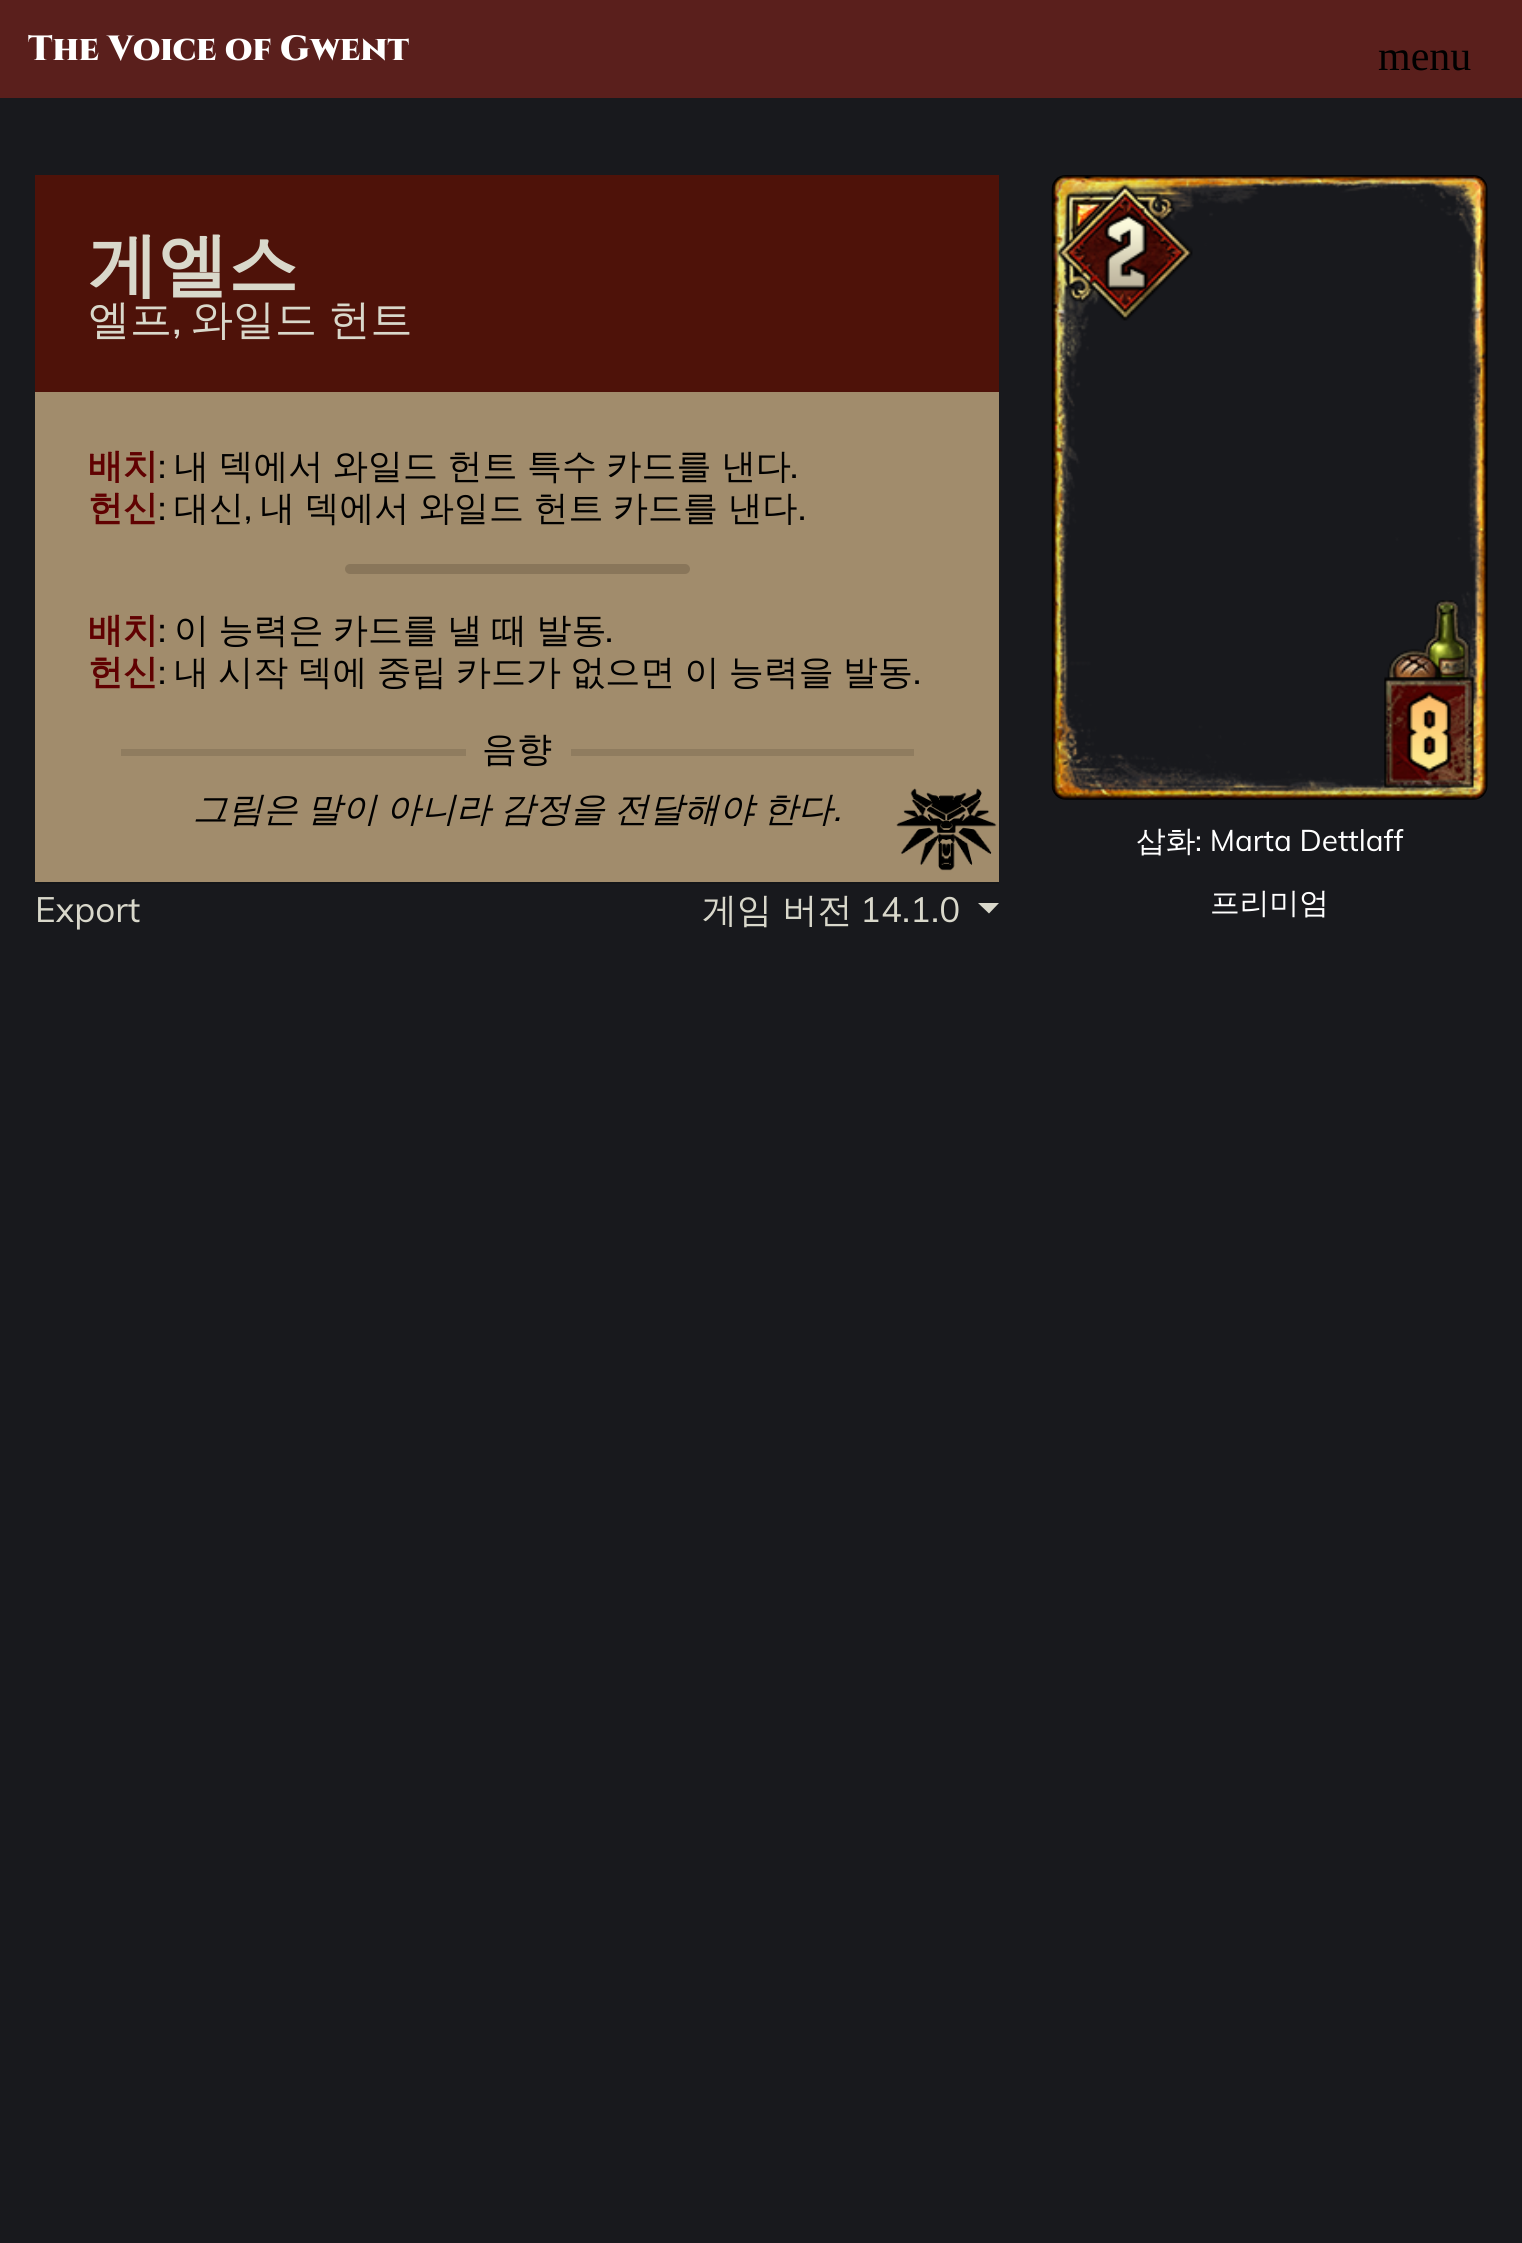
#include <cairo.h>
#include <math.h>
#include <stddef.h>


static void spaced_text(cairo_t *cr, double x, double y, const char *s, double letter, double word) {
    cairo_move_to(cr, x, y);
    while (*s) {
        char ch[5] = {0};
        int n = 0;
        do ch[n++] = *s++; while ((*s & 0xC0) == 0x80);
        cairo_show_text(cr, ch);
        cairo_rel_move_to(cr, letter + word * (*ch == ' '), 0);
    }
}

static void round_rect(cairo_t *cr, double x, double y, double w, double h, double r) {
    cairo_new_sub_path(cr);
    cairo_arc(cr, x + w - r, y + h - r, r, 0, M_PI / 2);
    cairo_arc(cr, x + r, y + h - r, r, M_PI / 2, M_PI);
    cairo_arc(cr, x + r, y + r, r, M_PI, 1.5 * M_PI);
    cairo_arc(cr, x + w - r, y + r, r, 1.5 * M_PI, 2 * M_PI);
    cairo_close_path(cr);
}

static void picture(cairo_t *cr, const char *path, double x, double y, double w, double h) {
    cairo_surface_t *image = cairo_image_surface_create_from_png(path);
    cairo_save(cr);
    cairo_set_source_surface(cr, image, x, y);
    cairo_rectangle(cr, x, y, w, h);
    cairo_fill(cr);
    cairo_restore(cr);
    cairo_surface_destroy(image);
}

int main(void) {
    cairo_surface_t *surface = cairo_image_surface_create(CAIRO_FORMAT_RGB24, 1522, 2243);
    cairo_t *cr = cairo_create(surface);
    cairo_font_options_t *options = cairo_font_options_create();
    cairo_font_options_set_hint_metrics(options, CAIRO_HINT_METRICS_OFF);
    cairo_font_options_set_hint_style(options, CAIRO_HINT_STYLE_NONE);
    cairo_set_font_options(cr, options);
    cairo_set_miter_limit(cr, 4);
    cairo_set_source_rgb(cr, 0.094, 0.098, 0.114);
    cairo_paint(cr);
    cairo_set_source_rgb(cr, 0.353, 0.122, 0.11);
    cairo_rectangle(cr, 0, 0, 1522, 98);
    cairo_fill(cr);
    cairo_select_font_face(cr, "Cinzel Black", CAIRO_FONT_SLANT_NORMAL, CAIRO_FONT_WEIGHT_NORMAL);
    cairo_set_font_size(cr, 35);
    cairo_set_source_rgb(cr, 1, 1, 1);
    cairo_move_to(cr, 28, 60);
    cairo_show_text(cr, "The Voice of Gwent");
    cairo_select_font_face(cr, "Liberation Serif", CAIRO_FONT_SLANT_NORMAL, CAIRO_FONT_WEIGHT_NORMAL);
    cairo_set_font_size(cr, 42);
    cairo_set_source_rgb(cr, 0, 0, 0);
    cairo_move_to(cr, 1378, 70);
    cairo_show_text(cr, "menu");
    cairo_set_source_rgb(cr, 0.306, 0.071, 0.039);
    cairo_rectangle(cr, 35, 175, 964, 217);
    cairo_fill(cr);
    cairo_select_font_face(cr, "WenQuanYi Zen Hei", CAIRO_FONT_SLANT_NORMAL, CAIRO_FONT_WEIGHT_BOLD);
    cairo_set_font_size(cr, 70);
    cairo_set_source_rgb(cr, 0.851, 0.847, 0.796);
    cairo_move_to(cr, 88, 289);
    cairo_show_text(cr, "게엘스");
    cairo_select_font_face(cr, "WenQuanYi Zen Hei Medium", CAIRO_FONT_SLANT_NORMAL, CAIRO_FONT_WEIGHT_NORMAL);
    cairo_set_font_size(cr, 42);
    cairo_move_to(cr, 88, 334);
    cairo_show_text(cr, "엘프");
    cairo_select_font_face(cr, "Muli", CAIRO_FONT_SLANT_NORMAL, CAIRO_FONT_WEIGHT_NORMAL);
    cairo_move_to(cr, 172, 334);
    cairo_show_text(cr, ",");
    cairo_select_font_face(cr, "WenQuanYi Zen Hei Medium", CAIRO_FONT_SLANT_NORMAL, CAIRO_FONT_WEIGHT_NORMAL);
    spaced_text(cr, 191, 334, "와일드 헌트", 0, -1);
    cairo_set_source_rgb(cr, 0.631, 0.549, 0.424);
    cairo_rectangle(cr, 35, 392, 964, 490);
    cairo_fill(cr);
    picture(cr, "img1.png", 896, 788, 101, 83);
    cairo_select_font_face(cr, "WenQuanYi Zen Hei", CAIRO_FONT_SLANT_NORMAL, CAIRO_FONT_WEIGHT_BOLD);
    cairo_set_font_size(cr, 35);
    cairo_set_source_rgb(cr, 0.376, 0.004, 0.004);
    cairo_move_to(cr, 88, 478);
    cairo_show_text(cr, "배치");
    cairo_select_font_face(cr, "Muli", CAIRO_FONT_SLANT_NORMAL, CAIRO_FONT_WEIGHT_NORMAL);
    cairo_set_source_rgb(cr, 0, 0, 0);
    cairo_move_to(cr, 158, 478);
    cairo_show_text(cr, ":");
    cairo_select_font_face(cr, "WenQuanYi Zen Hei Medium", CAIRO_FONT_SLANT_NORMAL, CAIRO_FONT_WEIGHT_NORMAL);
    spaced_text(cr, 174, 478, "내 덱에서 와일드 헌트 특수 카드를 낸다", 0, -1);
    cairo_select_font_face(cr, "Muli", CAIRO_FONT_SLANT_NORMAL, CAIRO_FONT_WEIGHT_NORMAL);
    cairo_move_to(cr, 790, 478);
    cairo_show_text(cr, ".");
    cairo_select_font_face(cr, "WenQuanYi Zen Hei", CAIRO_FONT_SLANT_NORMAL, CAIRO_FONT_WEIGHT_BOLD);
    cairo_set_source_rgb(cr, 0.376, 0.004, 0.004);
    cairo_move_to(cr, 88, 520);
    cairo_show_text(cr, "헌신");
    cairo_select_font_face(cr, "Muli", CAIRO_FONT_SLANT_NORMAL, CAIRO_FONT_WEIGHT_NORMAL);
    cairo_set_source_rgb(cr, 0, 0, 0);
    cairo_move_to(cr, 158, 520);
    cairo_show_text(cr, ":");
    cairo_select_font_face(cr, "WenQuanYi Zen Hei Medium", CAIRO_FONT_SLANT_NORMAL, CAIRO_FONT_WEIGHT_NORMAL);
    cairo_move_to(cr, 174, 520);
    cairo_show_text(cr, "대신");
    cairo_select_font_face(cr, "Muli", CAIRO_FONT_SLANT_NORMAL, CAIRO_FONT_WEIGHT_NORMAL);
    cairo_move_to(cr, 244, 520);
    cairo_show_text(cr, ",");
    cairo_select_font_face(cr, "WenQuanYi Zen Hei Medium", CAIRO_FONT_SLANT_NORMAL, CAIRO_FONT_WEIGHT_NORMAL);
    spaced_text(cr, 260, 520, "내 덱에서 와일드 헌트 카드를 낸다", 0, -1);
    cairo_select_font_face(cr, "Muli", CAIRO_FONT_SLANT_NORMAL, CAIRO_FONT_WEIGHT_NORMAL);
    cairo_move_to(cr, 798, 520);
    cairo_show_text(cr, ".");
    cairo_set_source_rgb(cr, 0.537, 0.463, 0.353);
    round_rect(cr, 345, 564, 345, 10, 5);
    cairo_fill(cr);
    cairo_select_font_face(cr, "WenQuanYi Zen Hei", CAIRO_FONT_SLANT_NORMAL, CAIRO_FONT_WEIGHT_BOLD);
    cairo_set_source_rgb(cr, 0.376, 0.004, 0.004);
    cairo_move_to(cr, 88, 642);
    cairo_show_text(cr, "배치");
    cairo_select_font_face(cr, "Muli", CAIRO_FONT_SLANT_NORMAL, CAIRO_FONT_WEIGHT_NORMAL);
    cairo_set_source_rgb(cr, 0, 0, 0);
    cairo_move_to(cr, 158, 642);
    cairo_show_text(cr, ":");
    cairo_select_font_face(cr, "WenQuanYi Zen Hei Medium", CAIRO_FONT_SLANT_NORMAL, CAIRO_FONT_WEIGHT_NORMAL);
    spaced_text(cr, 174, 642, "이 능력은 카드를 낼 때 발동", 0, -1);
    cairo_select_font_face(cr, "Muli", CAIRO_FONT_SLANT_NORMAL, CAIRO_FONT_WEIGHT_NORMAL);
    cairo_move_to(cr, 605, 642);
    cairo_show_text(cr, ".");
    cairo_select_font_face(cr, "WenQuanYi Zen Hei", CAIRO_FONT_SLANT_NORMAL, CAIRO_FONT_WEIGHT_BOLD);
    cairo_set_source_rgb(cr, 0.376, 0.004, 0.004);
    cairo_move_to(cr, 88, 684);
    cairo_show_text(cr, "헌신");
    cairo_select_font_face(cr, "Muli", CAIRO_FONT_SLANT_NORMAL, CAIRO_FONT_WEIGHT_NORMAL);
    cairo_set_source_rgb(cr, 0, 0, 0);
    cairo_move_to(cr, 158, 684);
    cairo_show_text(cr, ":");
    cairo_select_font_face(cr, "WenQuanYi Zen Hei Medium", CAIRO_FONT_SLANT_NORMAL, CAIRO_FONT_WEIGHT_NORMAL);
    spaced_text(cr, 174, 684, "내 시작 덱에 중립 카드가 없으면 이 능력을 발동", 0, -1.25);
    cairo_select_font_face(cr, "Muli", CAIRO_FONT_SLANT_NORMAL, CAIRO_FONT_WEIGHT_NORMAL);
    cairo_move_to(cr, 913, 684);
    cairo_show_text(cr, ".");
    cairo_set_source_rgb(cr, 0.561, 0.486, 0.373);
    cairo_rectangle(cr, 121, 749, 345, 7);
    cairo_fill(cr);
    cairo_select_font_face(cr, "WenQuanYi Zen Hei Medium", CAIRO_FONT_SLANT_NORMAL, CAIRO_FONT_WEIGHT_NORMAL);
    cairo_set_source_rgb(cr, 0, 0, 0);
    cairo_move_to(cr, 482, 761);
    cairo_show_text(cr, "음향");
    cairo_set_source_rgb(cr, 0.561, 0.486, 0.373);
    cairo_rectangle(cr, 571, 749, 343, 7);
    cairo_fill(cr);
    cairo_select_font_face(cr, "WenQuanYi Zen Hei Medium", CAIRO_FONT_SLANT_ITALIC, CAIRO_FONT_WEIGHT_NORMAL);
    cairo_set_source_rgb(cr, 0, 0, 0);
    spaced_text(cr, 193, 821, "그림은 말이 아니라 감정을 전달해야 한다", 0, -1.5);
    cairo_select_font_face(cr, "Muli", CAIRO_FONT_SLANT_ITALIC, CAIRO_FONT_WEIGHT_NORMAL);
    cairo_move_to(cr, 833, 821);
    cairo_show_text(cr, ".");
    cairo_set_source_rgb(cr, 0.082, 0.086, 0.098);
    cairo_rectangle(cr, 35, 882, 964, 2);
    cairo_fill(cr);
    cairo_select_font_face(cr, "Muli", CAIRO_FONT_SLANT_NORMAL, CAIRO_FONT_WEIGHT_NORMAL);
    cairo_set_source_rgb(cr, 0.851, 0.847, 0.796);
    cairo_move_to(cr, 35, 922);
    cairo_show_text(cr, "Export");
    cairo_select_font_face(cr, "WenQuanYi Zen Hei Medium", CAIRO_FONT_SLANT_NORMAL, CAIRO_FONT_WEIGHT_NORMAL);
    cairo_move_to(cr, 702, 922);
    cairo_show_text(cr, "게임 버전");
    cairo_select_font_face(cr, "Muli", CAIRO_FONT_SLANT_NORMAL, CAIRO_FONT_WEIGHT_NORMAL);
    cairo_move_to(cr, 860, 922);
    cairo_show_text(cr, "14.1.0");
    cairo_new_path(cr);
    cairo_move_to(cr, 978, 903);
    cairo_line_to(cr, 999, 903);
    cairo_line_to(cr, 989, 913.5);
    cairo_close_path(cr);
    cairo_fill(cr);
    picture(cr, "img2.png", 1051, 175, 437, 625);
    picture(cr, "img3.png", 1056, 182, 137, 139);
    picture(cr, "img4.png", 1104, 213, 45, 78);
    picture(cr, "img5.png", 1075, 202, 28, 26);
    picture(cr, "img6.png", 1387, 600, 84, 80);
    picture(cr, "img7.png", 1384, 676, 90, 112);
    picture(cr, "img8.png", 1406, 691, 46, 83);
    cairo_select_font_face(cr, "WenQuanYi Zen Hei Medium", CAIRO_FONT_SLANT_NORMAL, CAIRO_FONT_WEIGHT_NORMAL);
    cairo_set_font_size(cr, 29.75);
    cairo_set_source_rgb(cr, 1, 1, 1);
    cairo_move_to(cr, 1136, 851);
    cairo_show_text(cr, "삽화");
    cairo_select_font_face(cr, "Muli", CAIRO_FONT_SLANT_NORMAL, CAIRO_FONT_WEIGHT_NORMAL);
    cairo_move_to(cr, 1195, 851);
    cairo_show_text(cr, ": Marta Dettlaff");
    cairo_select_font_face(cr, "WenQuanYi Zen Hei Medium", CAIRO_FONT_SLANT_NORMAL, CAIRO_FONT_WEIGHT_NORMAL);
    cairo_move_to(cr, 1210, 913);
    cairo_show_text(cr, "프리미엄");
    cairo_surface_write_to_png(surface, "page.png");
    cairo_font_options_destroy(options);
    cairo_destroy(cr);
    cairo_surface_destroy(surface);
    return 0;
}
